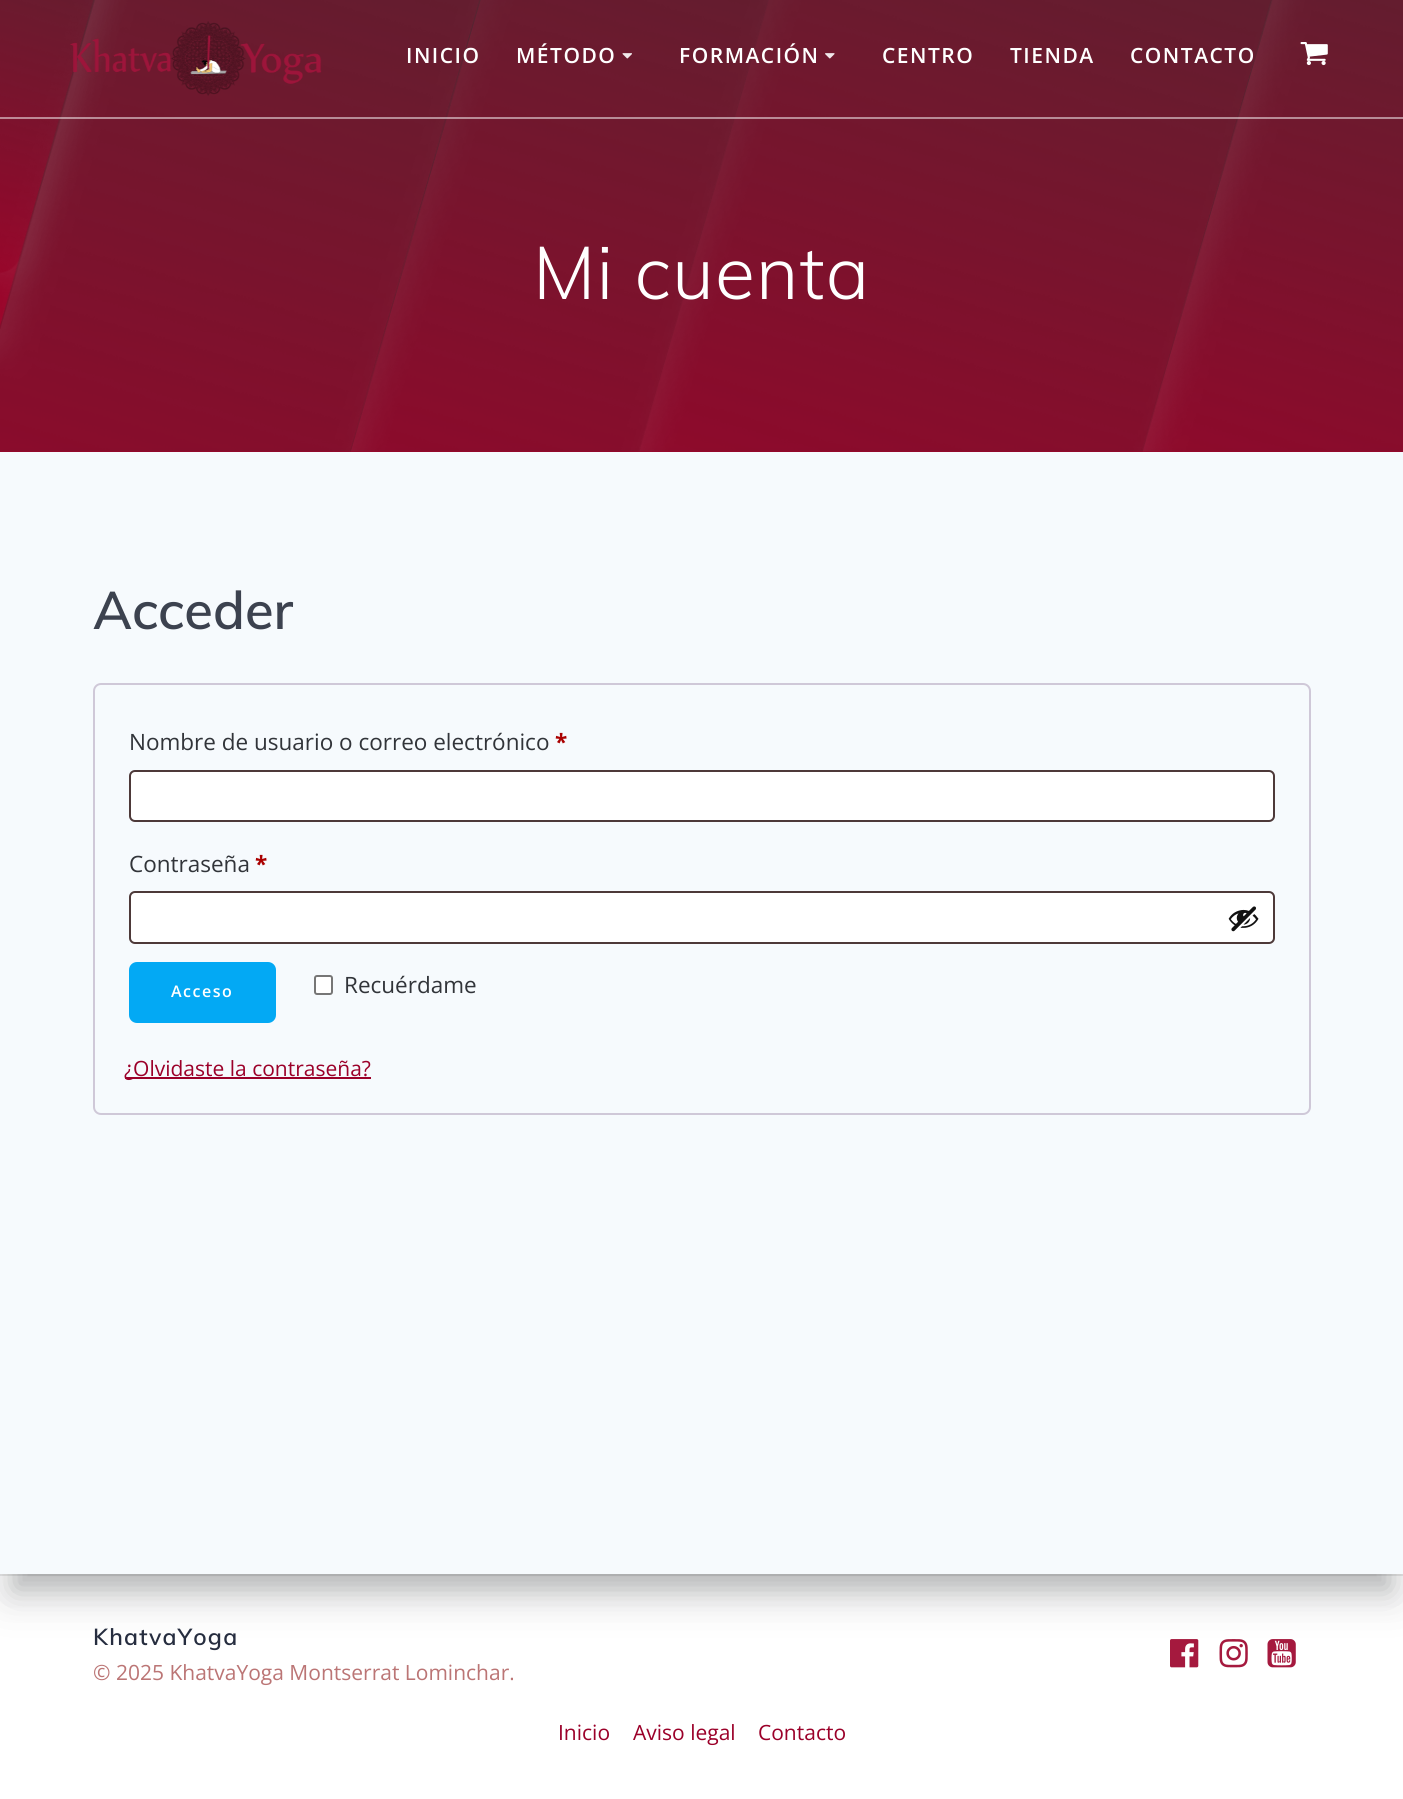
#include <cairo.h>
#include <math.h>
#include <stddef.h>


static void spaced_text(cairo_t *cr, double x, double y, const char *s, double letter, double word) {
    cairo_move_to(cr, x, y);
    while (*s) {
        char ch[5] = {0};
        int n = 0;
        do ch[n++] = *s++; while ((*s & 0xC0) == 0x80);
        cairo_show_text(cr, ch);
        cairo_rel_move_to(cr, letter + word * (*ch == ' '), 0);
    }
}

static void round_rect(cairo_t *cr, double x, double y, double w, double h, double r) {
    cairo_new_sub_path(cr);
    cairo_arc(cr, x + w - r, y + h - r, r, 0, M_PI / 2);
    cairo_arc(cr, x + r, y + h - r, r, M_PI / 2, M_PI);
    cairo_arc(cr, x + r, y + r, r, M_PI, 1.5 * M_PI);
    cairo_arc(cr, x + w - r, y + r, r, 1.5 * M_PI, 2 * M_PI);
    cairo_close_path(cr);
}

static void shadow(cairo_t *cr, double x, double y, double w, double h, double r, double blur, double alpha) {
    cairo_push_group_with_content(cr, CAIRO_CONTENT_ALPHA);
    cairo_set_operator(cr, CAIRO_OPERATOR_SOURCE);
    for (int i = 15; i >= -15 && fmin(w, h) + blur * i / 3 > 0; i -= 2) {
        double e = blur * i / 6;
        cairo_set_source_rgba(cr, 0, 0, 0, alpha * erfc((i - 1) / 8.5) / 2);
        round_rect(cr, x - e, y - e, w + 2 * e, h + 2 * e, fmax(0, fmin(r + e + blur * .6, fmin(w, h) / 2 + e)));
        cairo_fill(cr);
    }
    cairo_pattern_t *soft = cairo_pop_group(cr);
    cairo_mask(cr, soft);
    cairo_pattern_destroy(soft);
}

static void picture(cairo_t *cr, const char *path, double x, double y, double w, double h) {
    cairo_surface_t *image = cairo_image_surface_create_from_png(path);
    cairo_save(cr);
    cairo_set_source_surface(cr, image, x, y);
    cairo_rectangle(cr, x, y, w, h);
    cairo_fill(cr);
    cairo_restore(cr);
    cairo_surface_destroy(image);
}

int main(void) {
    cairo_surface_t *surface = cairo_image_surface_create(CAIRO_FORMAT_RGB24, 1403, 1799);
    cairo_t *cr = cairo_create(surface);
    cairo_font_options_t *options = cairo_font_options_create();
    cairo_font_options_set_hint_metrics(options, CAIRO_HINT_METRICS_OFF);
    cairo_font_options_set_hint_style(options, CAIRO_HINT_STYLE_NONE);
    cairo_set_font_options(cr, options);
    cairo_set_miter_limit(cr, 4);
    cairo_set_source_rgb(cr, 1, 1, 1);
    cairo_paint(cr);
    cairo_set_source_rgb(cr, 0.62, 0.012, 0.165);
    cairo_rectangle(cr, 0, 0, 1403, 452);
    cairo_fill(cr);
    picture(cr, "img5.png", 0, 0, 1403, 452);
    cairo_set_source_rgba(cr, 1, 1, 1, 0.5);
    cairo_rectangle(cr, 0, 117, 1403, 2);
    cairo_fill(cr);
    picture(cr, "img1.png", 70, 21, 252, 75);
    cairo_select_font_face(cr, "Open Sans SemiBold", CAIRO_FONT_SLANT_NORMAL, CAIRO_FONT_WEIGHT_NORMAL);
    cairo_set_font_size(cr, 21);
    cairo_set_source_rgb(cr, 1, 1, 1);
    spaced_text(cr, 406, 63, "INICIO", 1.5, 0);
    spaced_text(cr, 516, 63, "MÉTODO", 1.5, 0);
    picture(cr, "img2.png", 622, 53, 10, 6);
    spaced_text(cr, 679, 63, "FORMACIÓN", 1.5, 0);
    picture(cr, "img3.png", 825, 53, 10, 6);
    spaced_text(cr, 882, 63, "CENTRO", 1.5, 0);
    spaced_text(cr, 1010, 63, "TIENDA", 1.5, 0);
    spaced_text(cr, 1130, 63, "CONTACTO", 1.5, 0);
    picture(cr, "img4.png", 1300, 42, 28, 24);
    cairo_select_font_face(cr, "Muli Light", CAIRO_FONT_SLANT_NORMAL, CAIRO_FONT_WEIGHT_NORMAL);
    cairo_set_font_size(cr, 73.5);
    spaced_text(cr, 533, 299, "Mi cuenta", 1.25, 0);
    cairo_set_source_rgb(cr, 0.91, 0.91, 0.91);
    cairo_rectangle(cr, 0, 1574, 1403, 2);
    cairo_fill(cr);
    picture(cr, "img7.png", 1170, 1639, 29, 29);
    picture(cr, "img8.png", 1219, 1639, 29, 29);
    picture(cr, "img9.png", 1267, 1639, 29, 29);
    cairo_set_source_rgb(cr, 0, 0, 0);
    shadow(cr, 0, 482, 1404, 1122, 0, 22.5, 0.08);
    cairo_set_source_rgb(cr, 0.192, 0.204, 0.224);
    shadow(cr, 15, 497, 1374, 1092, 0, 15, 0.3);
    cairo_set_source_rgb(cr, 0.961, 0.98, 0.992);
    cairo_rectangle(cr, 0, 452, 1403, 1122);
    cairo_fill(cr);
    cairo_select_font_face(cr, "Muli SemiBold", CAIRO_FONT_SLANT_NORMAL, CAIRO_FONT_WEIGHT_NORMAL);
    cairo_set_font_size(cr, 52.5);
    cairo_set_source_rgb(cr, 0.235, 0.259, 0.31);
    cairo_move_to(cr, 93, 629);
    cairo_show_text(cr, "Acceder");
    round_rect(cr, 94, 684, 1216, 430, 7);
    cairo_set_source_rgb(cr, 0.812, 0.784, 0.847);
    cairo_stroke(cr);
    cairo_select_font_face(cr, "Open Sans", CAIRO_FONT_SLANT_NORMAL, CAIRO_FONT_WEIGHT_NORMAL);
    cairo_set_font_size(cr, 22.5);
    cairo_set_source_rgb(cr, 0.192, 0.204, 0.224);
    cairo_move_to(cr, 129, 750);
    cairo_show_text(cr, "Nombre de usuario o correo electrónico");
    cairo_select_font_face(cr, "Open Sans", CAIRO_FONT_SLANT_NORMAL, CAIRO_FONT_WEIGHT_BOLD);
    cairo_set_source_rgb(cr, 0.667, 0, 0);
    cairo_move_to(cr, 555, 750);
    cairo_show_text(cr, "*");
    cairo_set_source_rgb(cr, 1, 1, 1);
    round_rect(cr, 130, 771, 1144, 50, 5);
    cairo_fill_preserve(cr);
    cairo_set_source_rgb(cr, 0.302, 0.224, 0.224);
    cairo_stroke(cr);
    cairo_select_font_face(cr, "Open Sans", CAIRO_FONT_SLANT_NORMAL, CAIRO_FONT_WEIGHT_NORMAL);
    cairo_set_source_rgb(cr, 0.192, 0.204, 0.224);
    cairo_move_to(cr, 129, 872);
    cairo_show_text(cr, "Contraseña");
    cairo_select_font_face(cr, "Open Sans", CAIRO_FONT_SLANT_NORMAL, CAIRO_FONT_WEIGHT_BOLD);
    cairo_set_source_rgb(cr, 0.667, 0, 0);
    cairo_move_to(cr, 255, 872);
    cairo_show_text(cr, "*");
    cairo_set_source_rgb(cr, 1, 1, 1);
    round_rect(cr, 130, 892, 1144, 51, 5);
    cairo_fill_preserve(cr);
    cairo_set_source_rgb(cr, 0.302, 0.224, 0.224);
    cairo_stroke(cr);
    picture(cr, "img6.png", 1228, 906, 31, 26);
    cairo_set_source_rgb(cr, 0.012, 0.663, 0.957);
    round_rect(cr, 130.5, 963.5, 144, 58, 6.5);
    cairo_fill_preserve(cr);
    cairo_set_line_width(cr, 3);
    cairo_stroke(cr);
    cairo_select_font_face(cr, "Open Sans SemiBold", CAIRO_FONT_SLANT_NORMAL, CAIRO_FONT_WEIGHT_NORMAL);
    cairo_set_font_size(cr, 16);
    cairo_set_source_rgb(cr, 1, 1, 1);
    spaced_text(cr, 171, 997, "Acceso", 1.5, 0);
    round_rect(cr, 315, 976, 17, 18, 2);
    cairo_fill_preserve(cr);
    cairo_set_source_rgb(cr, 0.463, 0.463, 0.463);
    cairo_set_line_width(cr, 2);
    cairo_stroke(cr);
    cairo_select_font_face(cr, "Open Sans", CAIRO_FONT_SLANT_NORMAL, CAIRO_FONT_WEIGHT_NORMAL);
    cairo_set_font_size(cr, 22.5);
    cairo_set_source_rgb(cr, 0.192, 0.204, 0.224);
    cairo_move_to(cr, 344, 993);
    cairo_show_text(cr, "Recuérdame");
    cairo_set_source_rgb(cr, 0.608, 0, 0.161);
    cairo_rectangle(cr, 125, 1077, 246, 2);
    cairo_fill(cr);
    cairo_set_font_size(cr, 21);
    cairo_move_to(cr, 124, 1076);
    cairo_show_text(cr, "¿Olvidaste la contraseña?");
    cairo_select_font_face(cr, "Muli SemiBold", CAIRO_FONT_SLANT_NORMAL, CAIRO_FONT_WEIGHT_NORMAL);
    cairo_set_font_size(cr, 23);
    cairo_set_source_rgb(cr, 0.149, 0.176, 0.247);
    spaced_text(cr, 93, 1645, "KhatvaYoga", 1.25, 0);
    cairo_select_font_face(cr, "Open Sans", CAIRO_FONT_SLANT_NORMAL, CAIRO_FONT_WEIGHT_NORMAL);
    cairo_set_font_size(cr, 21);
    cairo_set_source_rgb(cr, 0.733, 0.459, 0.459);
    cairo_move_to(cr, 93, 1680);
    cairo_show_text(cr, "© 2025 KhatvaYoga Montserrat Lominchar.");
    cairo_set_source_rgb(cr, 0.608, 0, 0.161);
    cairo_move_to(cr, 558, 1740);
    cairo_show_text(cr, "Inicio");
    cairo_move_to(cr, 633, 1740);
    cairo_show_text(cr, "Aviso legal");
    cairo_move_to(cr, 758, 1740);
    cairo_show_text(cr, "Contacto");
    cairo_surface_write_to_png(surface, "page.png");
    cairo_font_options_destroy(options);
    cairo_destroy(cr);
    cairo_surface_destroy(surface);
    return 0;
}
